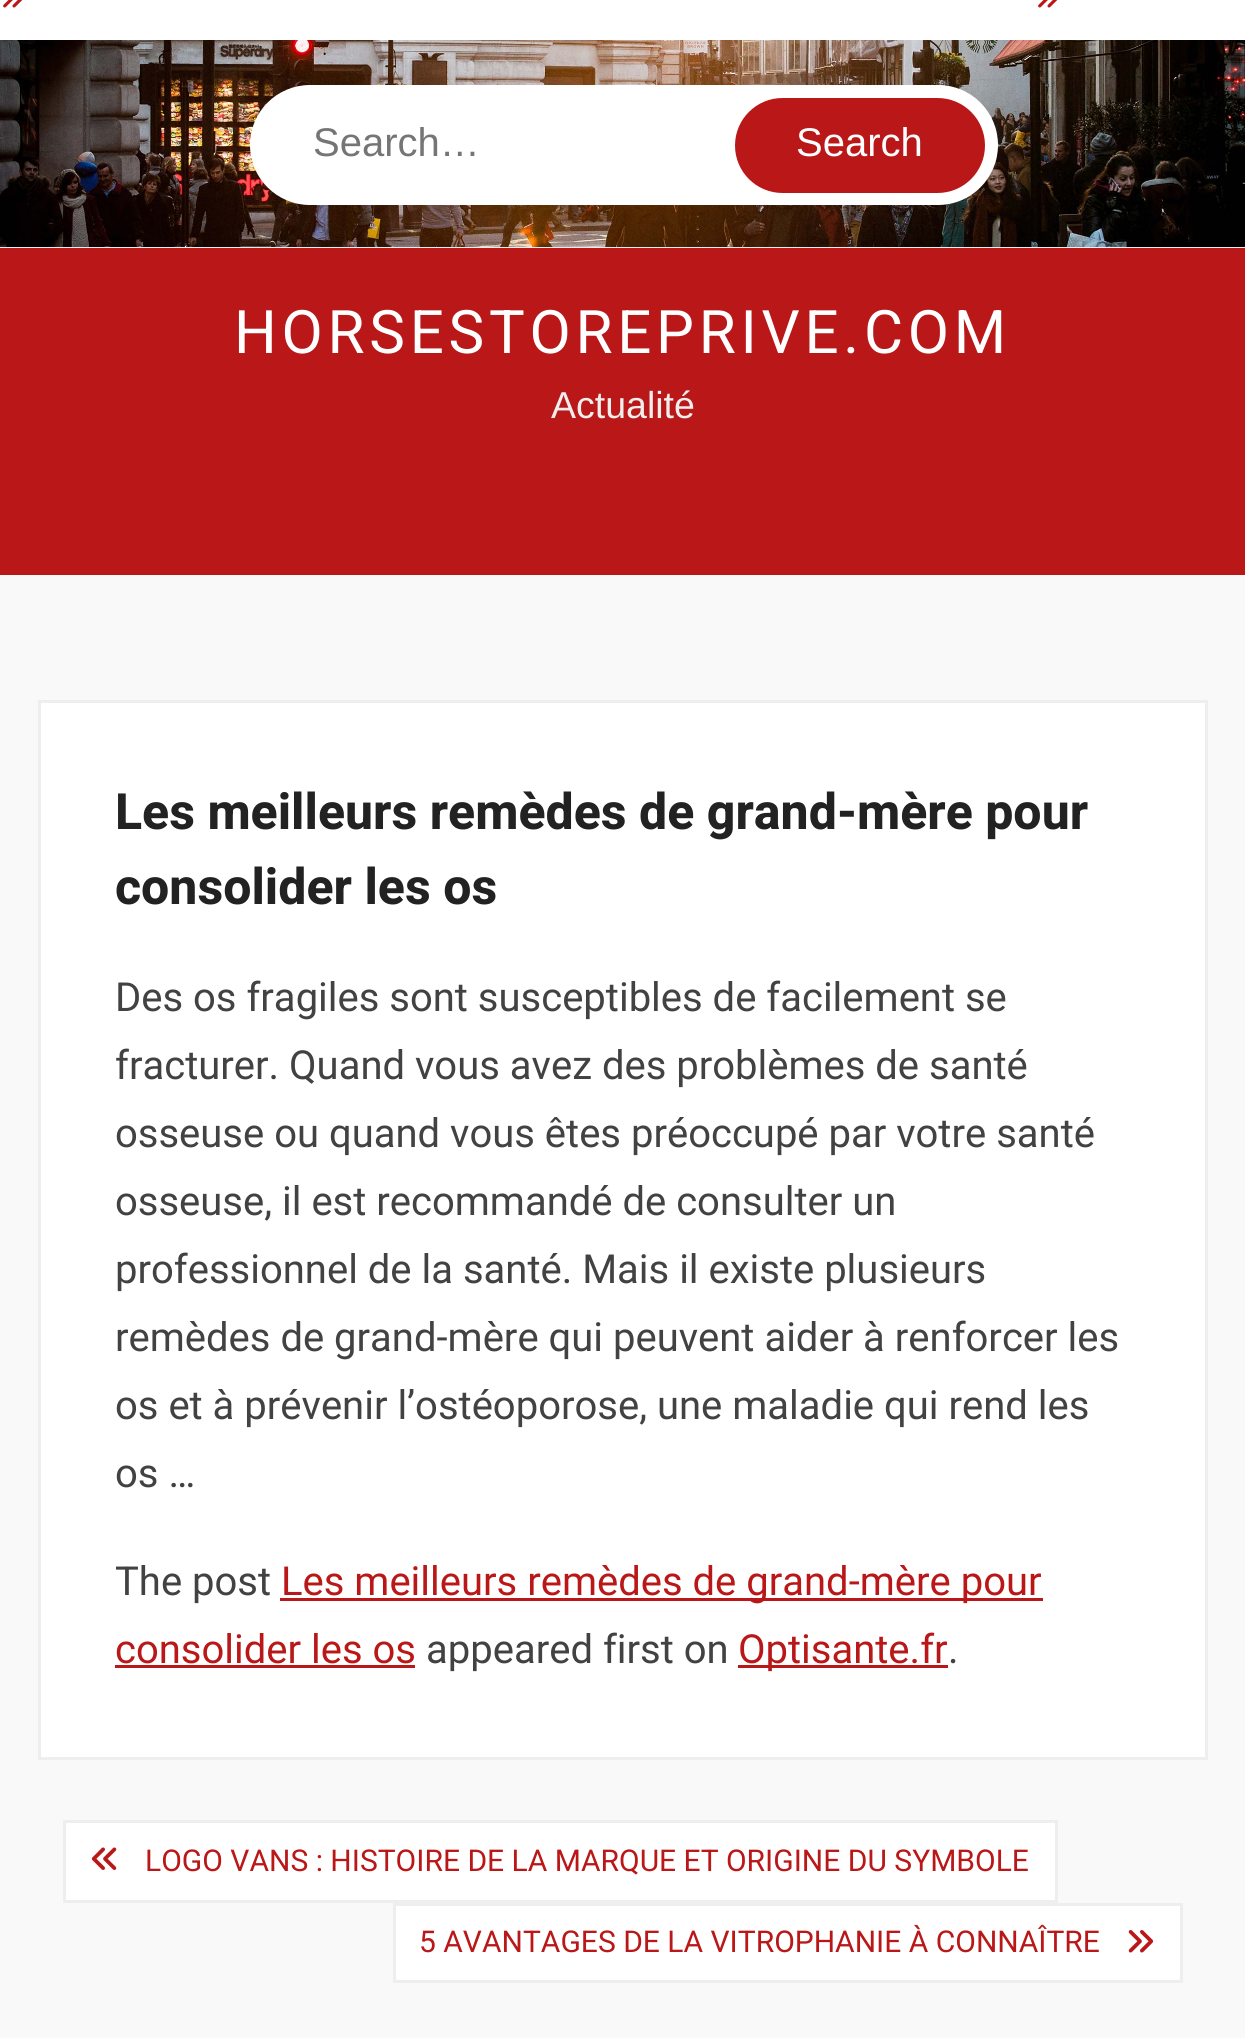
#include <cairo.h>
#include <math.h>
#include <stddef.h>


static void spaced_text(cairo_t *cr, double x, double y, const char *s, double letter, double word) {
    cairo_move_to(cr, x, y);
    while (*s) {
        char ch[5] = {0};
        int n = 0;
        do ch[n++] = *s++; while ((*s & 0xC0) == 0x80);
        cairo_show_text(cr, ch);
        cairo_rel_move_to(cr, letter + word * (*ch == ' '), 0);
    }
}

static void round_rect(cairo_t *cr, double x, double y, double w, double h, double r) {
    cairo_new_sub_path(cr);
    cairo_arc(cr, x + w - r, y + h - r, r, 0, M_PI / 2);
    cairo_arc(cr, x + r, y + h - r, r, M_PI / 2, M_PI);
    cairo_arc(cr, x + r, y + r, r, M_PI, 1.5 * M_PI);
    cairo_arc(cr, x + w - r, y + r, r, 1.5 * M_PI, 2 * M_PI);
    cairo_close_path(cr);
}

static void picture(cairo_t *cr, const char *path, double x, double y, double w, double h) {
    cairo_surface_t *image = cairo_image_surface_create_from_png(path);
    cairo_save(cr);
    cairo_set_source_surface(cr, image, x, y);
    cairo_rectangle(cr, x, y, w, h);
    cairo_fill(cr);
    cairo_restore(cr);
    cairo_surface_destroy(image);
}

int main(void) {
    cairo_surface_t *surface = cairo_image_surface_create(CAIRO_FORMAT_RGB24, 1245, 2038);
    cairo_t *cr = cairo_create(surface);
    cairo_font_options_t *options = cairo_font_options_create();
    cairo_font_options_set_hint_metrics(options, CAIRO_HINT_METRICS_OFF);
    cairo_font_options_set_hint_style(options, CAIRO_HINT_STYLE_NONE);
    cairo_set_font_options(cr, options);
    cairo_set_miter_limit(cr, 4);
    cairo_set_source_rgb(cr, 0.973, 0.973, 0.973);
    cairo_paint(cr);
    cairo_set_source_rgb(cr, 1, 1, 1);
    cairo_rectangle(cr, 0, 0, 1245, 40);
    cairo_fill(cr);
    picture(cr, "img1.png", 3, 0, 20, 8);
    picture(cr, "img1.png", 1038, 0, 20, 8);
    cairo_set_source_rgb(cr, 0.933, 0.933, 0.933);
    cairo_rectangle(cr, 0, 247, 1245, 1);
    cairo_fill(cr);
    picture(cr, "img2.png", 0, 40, 1245, 207);
    cairo_set_source_rgb(cr, 1, 1, 1);
    round_rect(cr, 250, 85, 748, 120, 60);
    cairo_fill(cr);
    cairo_select_font_face(cr, "Arimo", CAIRO_FONT_SLANT_NORMAL, CAIRO_FONT_WEIGHT_NORMAL);
    cairo_set_font_size(cr, 40);
    cairo_set_source_rgb(cr, 0.459, 0.459, 0.459);
    cairo_move_to(cr, 313, 156);
    cairo_show_text(cr, "Search…");
    cairo_set_source_rgb(cr, 0.729, 0.094, 0.094);
    round_rect(cr, 735, 98, 250, 95, 47.5);
    cairo_fill(cr);
    cairo_set_source_rgb(cr, 1, 1, 1);
    cairo_move_to(cr, 796, 156);
    cairo_show_text(cr, "Search");
    cairo_set_source_rgb(cr, 0.729, 0.094, 0.094);
    cairo_rectangle(cr, 0, 248, 1245, 327);
    cairo_fill(cr);
    cairo_select_font_face(cr, "Heebo", CAIRO_FONT_SLANT_NORMAL, CAIRO_FONT_WEIGHT_NORMAL);
    cairo_set_font_size(cr, 60);
    cairo_set_source_rgb(cr, 1, 1, 1);
    spaced_text(cr, 234, 353, "HORSESTOREPRIVE.COM", 4.75, 0);
    cairo_select_font_face(cr, "Arimo", CAIRO_FONT_SLANT_NORMAL, CAIRO_FONT_WEIGHT_NORMAL);
    cairo_set_font_size(cr, 37.5);
    cairo_set_source_rgb(cr, 0.933, 0.933, 0.933);
    cairo_move_to(cr, 551, 418);
    cairo_show_text(cr, "Actualité");
    cairo_set_source_rgb(cr, 1, 1, 1);
    cairo_rectangle(cr, 39.5, 701.5, 1167, 1057);
    cairo_fill_preserve(cr);
    cairo_set_source_rgb(cr, 0.933, 0.933, 0.933);
    cairo_set_line_width(cr, 3);
    cairo_stroke(cr);
    cairo_select_font_face(cr, "Heebo", CAIRO_FONT_SLANT_NORMAL, CAIRO_FONT_WEIGHT_BOLD);
    cairo_set_font_size(cr, 50);
    cairo_set_source_rgb(cr, 0.133, 0.133, 0.133);
    cairo_move_to(cr, 115, 829);
    cairo_show_text(cr, "Les meilleurs remèdes de grand-mère pour");
    cairo_move_to(cr, 115, 904);
    cairo_show_text(cr, "consolider les os");
    cairo_select_font_face(cr, "Roboto", CAIRO_FONT_SLANT_NORMAL, CAIRO_FONT_WEIGHT_NORMAL);
    cairo_set_font_size(cr, 40);
    cairo_set_source_rgb(cr, 0.259, 0.259, 0.259);
    cairo_move_to(cr, 115, 1011);
    cairo_show_text(cr, "Des os fragiles sont susceptibles de facilement se");
    cairo_move_to(cr, 115, 1079);
    cairo_show_text(cr, "fracturer. Quand vous avez des problèmes de santé");
    cairo_move_to(cr, 115, 1147);
    cairo_show_text(cr, "osseuse ou quand vous êtes préoccupé par votre santé");
    cairo_move_to(cr, 115, 1215);
    cairo_show_text(cr, "osseuse, il est recommandé de consulter un");
    cairo_move_to(cr, 115, 1283);
    cairo_show_text(cr, "professionnel de la santé. Mais il existe plusieurs");
    cairo_move_to(cr, 115, 1351);
    cairo_show_text(cr, "remèdes de grand-mère qui peuvent aider à renforcer les");
    cairo_move_to(cr, 115, 1419);
    cairo_show_text(cr, "os et à prévenir l’ostéoporose, une maladie qui rend les");
    cairo_move_to(cr, 115, 1487);
    cairo_show_text(cr, "os …");
    cairo_move_to(cr, 115, 1595);
    cairo_show_text(cr, "The post");
    cairo_set_source_rgb(cr, 0.729, 0.094, 0.094);
    cairo_rectangle(cr, 280, 1598, 763, 3);
    cairo_fill(cr);
    cairo_move_to(cr, 281, 1595);
    cairo_show_text(cr, "Les meilleurs remèdes de grand-mère pour");
    cairo_move_to(cr, 115, 1663);
    cairo_show_text(cr, "consolider les os");
    cairo_rectangle(cr, 115, 1665, 300, 3);
    cairo_fill(cr);
    cairo_set_source_rgb(cr, 0.259, 0.259, 0.259);
    cairo_move_to(cr, 426, 1663);
    cairo_show_text(cr, "appeared first on");
    cairo_set_source_rgb(cr, 0.729, 0.094, 0.094);
    cairo_rectangle(cr, 738, 1665, 210, 3);
    cairo_fill(cr);
    cairo_move_to(cr, 738, 1663);
    cairo_show_text(cr, "Optisante.fr");
    cairo_set_source_rgb(cr, 0.259, 0.259, 0.259);
    cairo_move_to(cr, 948, 1663);
    cairo_show_text(cr, ".");
    cairo_set_source_rgb(cr, 1, 1, 1);
    cairo_rectangle(cr, 64.5, 1821.5, 992, 80);
    cairo_fill_preserve(cr);
    cairo_set_source_rgb(cr, 0.933, 0.933, 0.933);
    cairo_stroke(cr);
    picture(cr, "img3.png", 91, 1847, 26, 23);
    cairo_set_font_size(cr, 30);
    cairo_set_source_rgb(cr, 0.729, 0.094, 0.094);
    cairo_move_to(cr, 145, 1871);
    cairo_show_text(cr, "LOGO VANS : HISTOIRE DE LA MARQUE ET ORIGINE DU SYMBOLE");
    cairo_set_source_rgb(cr, 1, 1, 1);
    cairo_rectangle(cr, 394.5, 1904.5, 787, 77);
    cairo_fill_preserve(cr);
    cairo_set_source_rgb(cr, 0.933, 0.933, 0.933);
    cairo_stroke(cr);
    cairo_set_source_rgb(cr, 0.729, 0.094, 0.094);
    cairo_move_to(cr, 419, 1952);
    cairo_show_text(cr, "5 AVANTAGES DE LA VITROPHANIE À CONNAÎTRE");
    picture(cr, "img4.png", 1128, 1930, 26, 23);
    cairo_surface_write_to_png(surface, "page.png");
    cairo_font_options_destroy(options);
    cairo_destroy(cr);
    cairo_surface_destroy(surface);
    return 0;
}
